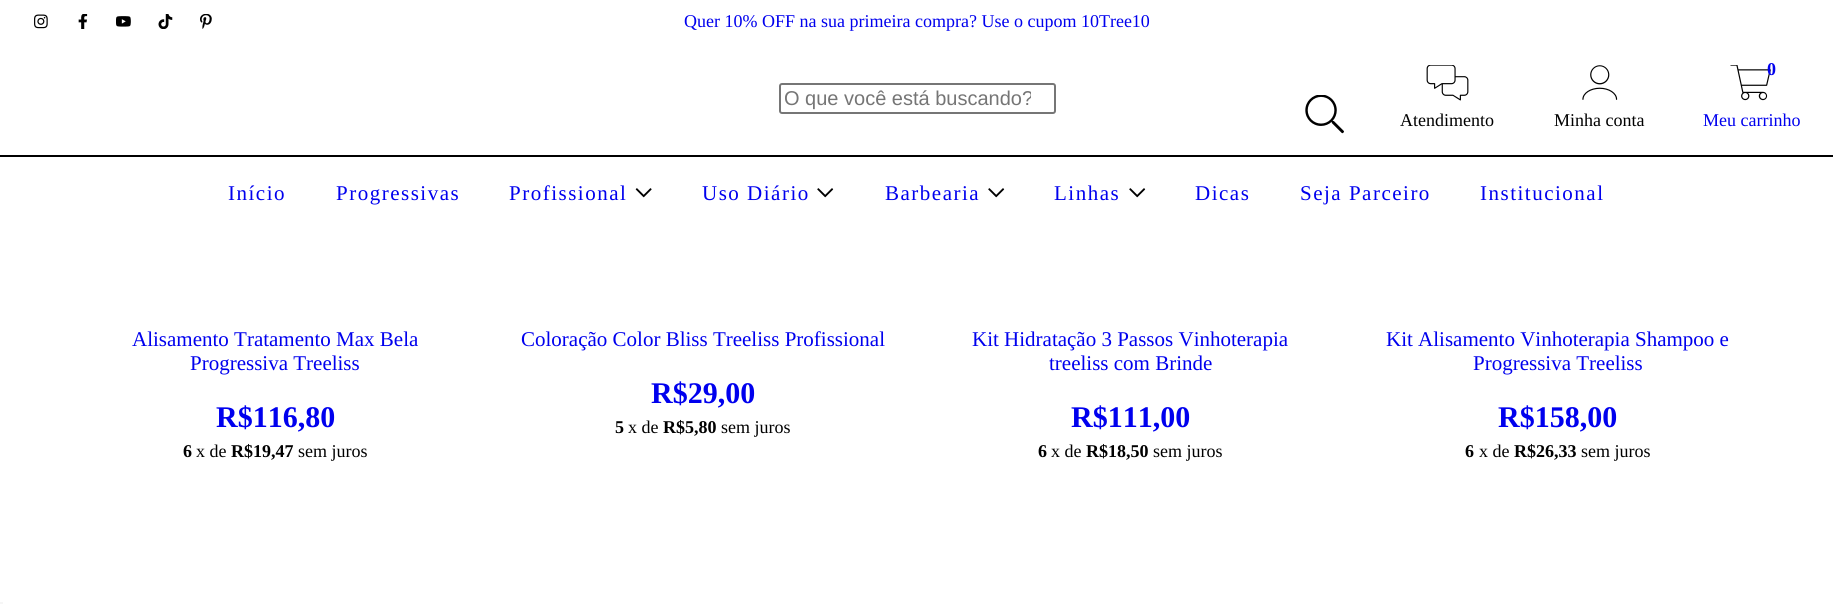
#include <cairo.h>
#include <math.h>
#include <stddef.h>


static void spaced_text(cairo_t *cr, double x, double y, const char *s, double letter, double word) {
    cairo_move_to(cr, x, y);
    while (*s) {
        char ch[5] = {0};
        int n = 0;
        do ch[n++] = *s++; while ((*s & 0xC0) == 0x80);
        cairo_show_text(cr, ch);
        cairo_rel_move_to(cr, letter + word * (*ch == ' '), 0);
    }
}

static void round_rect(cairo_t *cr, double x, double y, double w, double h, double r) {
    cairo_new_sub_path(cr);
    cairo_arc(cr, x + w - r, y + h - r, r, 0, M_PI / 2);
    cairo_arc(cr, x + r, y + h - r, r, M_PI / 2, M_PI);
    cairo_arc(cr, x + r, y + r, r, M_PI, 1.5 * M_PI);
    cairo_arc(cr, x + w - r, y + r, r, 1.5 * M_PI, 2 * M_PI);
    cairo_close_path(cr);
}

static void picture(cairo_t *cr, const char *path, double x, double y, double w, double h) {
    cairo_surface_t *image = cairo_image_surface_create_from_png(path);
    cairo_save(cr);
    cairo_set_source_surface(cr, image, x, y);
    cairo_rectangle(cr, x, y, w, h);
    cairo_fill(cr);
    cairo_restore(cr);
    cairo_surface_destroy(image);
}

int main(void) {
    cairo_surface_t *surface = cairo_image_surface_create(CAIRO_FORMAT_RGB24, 1833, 604);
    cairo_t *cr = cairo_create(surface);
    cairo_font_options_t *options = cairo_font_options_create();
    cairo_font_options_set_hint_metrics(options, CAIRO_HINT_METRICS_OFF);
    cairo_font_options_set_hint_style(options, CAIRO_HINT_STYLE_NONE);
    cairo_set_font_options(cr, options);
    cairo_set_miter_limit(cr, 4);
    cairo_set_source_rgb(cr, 1, 1, 1);
    cairo_paint(cr);
    picture(cr, "img1.png", 34, 14, 14, 15);
    picture(cr, "img2.png", 78, 14, 10, 15);
    picture(cr, "img3.png", 116, 16, 15, 11);
    picture(cr, "img4.png", 158, 14, 15, 15);
    picture(cr, "img5.png", 200, 14, 12, 15);
    cairo_select_font_face(cr, "Liberation Serif", CAIRO_FONT_SLANT_NORMAL, CAIRO_FONT_WEIGHT_NORMAL);
    cairo_set_font_size(cr, 18);
    cairo_set_source_rgb(cr, 0, 0, 0.933);
    cairo_move_to(cr, 684, 27);
    cairo_show_text(cr, "Quer 10% OFF na sua primeira compra? Use o cupom 10Tree10");
    round_rect(cr, 780, 84, 275, 29, 2);
    cairo_set_source_rgb(cr, 0.463, 0.463, 0.463);
    cairo_stroke(cr);
    cairo_save(cr);
    cairo_rectangle(cr, 785, 87, 246, 23);
    cairo_clip(cr);
    cairo_select_font_face(cr, "Liberation Sans", CAIRO_FONT_SLANT_NORMAL, CAIRO_FONT_WEIGHT_NORMAL);
    cairo_set_font_size(cr, 20);
    cairo_set_source_rgb(cr, 0.459, 0.459, 0.459);
    cairo_move_to(cr, 784, 105);
    cairo_show_text(cr, "O que você está buscando?");
    cairo_restore(cr);
    picture(cr, "img6.png", 1305, 95, 39, 39);
    picture(cr, "img7.png", 1426, 65, 43, 36);
    cairo_set_source_rgb(cr, 0, 0, 0);
    cairo_move_to(cr, 1400, 126);
    cairo_show_text(cr, "Atendimento");
    picture(cr, "img8.png", 1582, 65, 36, 35);
    cairo_move_to(cr, 1554, 126);
    cairo_show_text(cr, "Minha conta");
    picture(cr, "img9.png", 1730, 65, 41, 36);
    cairo_select_font_face(cr, "Liberation Serif", CAIRO_FONT_SLANT_NORMAL, CAIRO_FONT_WEIGHT_BOLD);
    cairo_set_source_rgb(cr, 0, 0, 0.933);
    cairo_move_to(cr, 1767, 75);
    cairo_show_text(cr, "0");
    cairo_select_font_face(cr, "Liberation Serif", CAIRO_FONT_SLANT_NORMAL, CAIRO_FONT_WEIGHT_NORMAL);
    cairo_move_to(cr, 1703, 126);
    cairo_show_text(cr, "Meu carrinho");
    cairo_set_source_rgb(cr, 0, 0, 0);
    cairo_rectangle(cr, 0, 155, 1833, 2);
    cairo_fill(cr);
    cairo_set_font_size(cr, 21);
    cairo_set_source_rgb(cr, 0, 0, 0.933);
    spaced_text(cr, 228, 200, "Início", 1.5, 0);
    spaced_text(cr, 336, 200, "Progressivas", 1.5, 0);
    spaced_text(cr, 509, 200, "Profissional", 1.5, 0);
    picture(cr, "img10.png", 635, 188, 17, 10);
    spaced_text(cr, 702, 200, "Uso Diário", 1.5, 0);
    picture(cr, "img11.png", 817, 188, 17, 10);
    spaced_text(cr, 885, 200, "Barbearia", 1.5, 0);
    picture(cr, "img11.png", 988, 188, 17, 10);
    spaced_text(cr, 1054, 200, "Linhas", 1.5, 0);
    picture(cr, "img11.png", 1129, 188, 17, 10);
    spaced_text(cr, 1195, 200, "Dicas", 1.5, 0);
    spaced_text(cr, 1300, 200, "Seja Parceiro", 1.5, 0);
    spaced_text(cr, 1480, 200, "Institucional", 1.5, 0);
    cairo_move_to(cr, 132, 346);
    cairo_show_text(cr, "Alisamento Tratamento Max Bela");
    cairo_move_to(cr, 190, 370);
    cairo_show_text(cr, "Progressiva Treeliss");
    cairo_select_font_face(cr, "Liberation Serif", CAIRO_FONT_SLANT_NORMAL, CAIRO_FONT_WEIGHT_BOLD);
    cairo_set_font_size(cr, 30);
    cairo_move_to(cr, 216, 427);
    cairo_show_text(cr, "R$116,80");
    cairo_set_font_size(cr, 18);
    cairo_set_source_rgb(cr, 0, 0, 0);
    cairo_move_to(cr, 183, 457);
    cairo_show_text(cr, "6");
    cairo_select_font_face(cr, "Liberation Serif", CAIRO_FONT_SLANT_NORMAL, CAIRO_FONT_WEIGHT_NORMAL);
    cairo_move_to(cr, 196, 457);
    cairo_show_text(cr, "x de");
    cairo_select_font_face(cr, "Liberation Serif", CAIRO_FONT_SLANT_NORMAL, CAIRO_FONT_WEIGHT_BOLD);
    cairo_move_to(cr, 231, 457);
    cairo_show_text(cr, "R$19,47");
    cairo_select_font_face(cr, "Liberation Serif", CAIRO_FONT_SLANT_NORMAL, CAIRO_FONT_WEIGHT_NORMAL);
    cairo_move_to(cr, 298, 457);
    cairo_show_text(cr, "sem juros");
    cairo_set_font_size(cr, 21);
    cairo_set_source_rgb(cr, 0, 0, 0.933);
    cairo_move_to(cr, 521, 346);
    cairo_show_text(cr, "Coloração Color Bliss Treeliss Profissional");
    cairo_select_font_face(cr, "Liberation Serif", CAIRO_FONT_SLANT_NORMAL, CAIRO_FONT_WEIGHT_BOLD);
    cairo_set_font_size(cr, 30);
    cairo_move_to(cr, 651, 403);
    cairo_show_text(cr, "R$29,00");
    cairo_set_font_size(cr, 18);
    cairo_set_source_rgb(cr, 0, 0, 0);
    cairo_move_to(cr, 615, 433);
    cairo_show_text(cr, "5");
    cairo_select_font_face(cr, "Liberation Serif", CAIRO_FONT_SLANT_NORMAL, CAIRO_FONT_WEIGHT_NORMAL);
    cairo_move_to(cr, 628, 433);
    cairo_show_text(cr, "x de");
    cairo_select_font_face(cr, "Liberation Serif", CAIRO_FONT_SLANT_NORMAL, CAIRO_FONT_WEIGHT_BOLD);
    cairo_move_to(cr, 663, 433);
    cairo_show_text(cr, "R$5,80");
    cairo_select_font_face(cr, "Liberation Serif", CAIRO_FONT_SLANT_NORMAL, CAIRO_FONT_WEIGHT_NORMAL);
    cairo_move_to(cr, 721, 433);
    cairo_show_text(cr, "sem juros");
    cairo_set_font_size(cr, 21);
    cairo_set_source_rgb(cr, 0, 0, 0.933);
    cairo_move_to(cr, 972, 346);
    cairo_show_text(cr, "Kit Hidratação 3 Passos Vinhoterapia");
    cairo_move_to(cr, 1049, 370);
    cairo_show_text(cr, "treeliss com Brinde");
    cairo_select_font_face(cr, "Liberation Serif", CAIRO_FONT_SLANT_NORMAL, CAIRO_FONT_WEIGHT_BOLD);
    cairo_set_font_size(cr, 30);
    cairo_move_to(cr, 1071, 427);
    cairo_show_text(cr, "R$111,00");
    cairo_set_font_size(cr, 18);
    cairo_set_source_rgb(cr, 0, 0, 0);
    cairo_move_to(cr, 1038, 457);
    cairo_show_text(cr, "6");
    cairo_select_font_face(cr, "Liberation Serif", CAIRO_FONT_SLANT_NORMAL, CAIRO_FONT_WEIGHT_NORMAL);
    cairo_move_to(cr, 1051, 457);
    cairo_show_text(cr, "x de");
    cairo_select_font_face(cr, "Liberation Serif", CAIRO_FONT_SLANT_NORMAL, CAIRO_FONT_WEIGHT_BOLD);
    cairo_move_to(cr, 1086, 457);
    cairo_show_text(cr, "R$18,50");
    cairo_select_font_face(cr, "Liberation Serif", CAIRO_FONT_SLANT_NORMAL, CAIRO_FONT_WEIGHT_NORMAL);
    cairo_move_to(cr, 1153, 457);
    cairo_show_text(cr, "sem juros");
    cairo_set_font_size(cr, 21);
    cairo_set_source_rgb(cr, 0, 0, 0.933);
    cairo_move_to(cr, 1386, 346);
    cairo_show_text(cr, "Kit Alisamento Vinhoterapia Shampoo e");
    cairo_move_to(cr, 1473, 370);
    cairo_show_text(cr, "Progressiva Treeliss");
    cairo_select_font_face(cr, "Liberation Serif", CAIRO_FONT_SLANT_NORMAL, CAIRO_FONT_WEIGHT_BOLD);
    cairo_set_font_size(cr, 30);
    cairo_move_to(cr, 1498, 427);
    cairo_show_text(cr, "R$158,00");
    cairo_set_font_size(cr, 18);
    cairo_set_source_rgb(cr, 0, 0, 0);
    cairo_move_to(cr, 1465, 457);
    cairo_show_text(cr, "6");
    cairo_select_font_face(cr, "Liberation Serif", CAIRO_FONT_SLANT_NORMAL, CAIRO_FONT_WEIGHT_NORMAL);
    cairo_move_to(cr, 1479, 457);
    cairo_show_text(cr, "x de");
    cairo_select_font_face(cr, "Liberation Serif", CAIRO_FONT_SLANT_NORMAL, CAIRO_FONT_WEIGHT_BOLD);
    cairo_move_to(cr, 1514, 457);
    cairo_show_text(cr, "R$26,33");
    cairo_select_font_face(cr, "Liberation Serif", CAIRO_FONT_SLANT_NORMAL, CAIRO_FONT_WEIGHT_NORMAL);
    cairo_move_to(cr, 1581, 457);
    cairo_show_text(cr, "sem juros");
    cairo_set_source_rgb(cr, 0.961, 0.961, 0.961);
    cairo_rectangle(cr, 0, 602, 3, 2);
    cairo_fill(cr);
    cairo_surface_write_to_png(surface, "page.png");
    cairo_font_options_destroy(options);
    cairo_destroy(cr);
    cairo_surface_destroy(surface);
    return 0;
}
